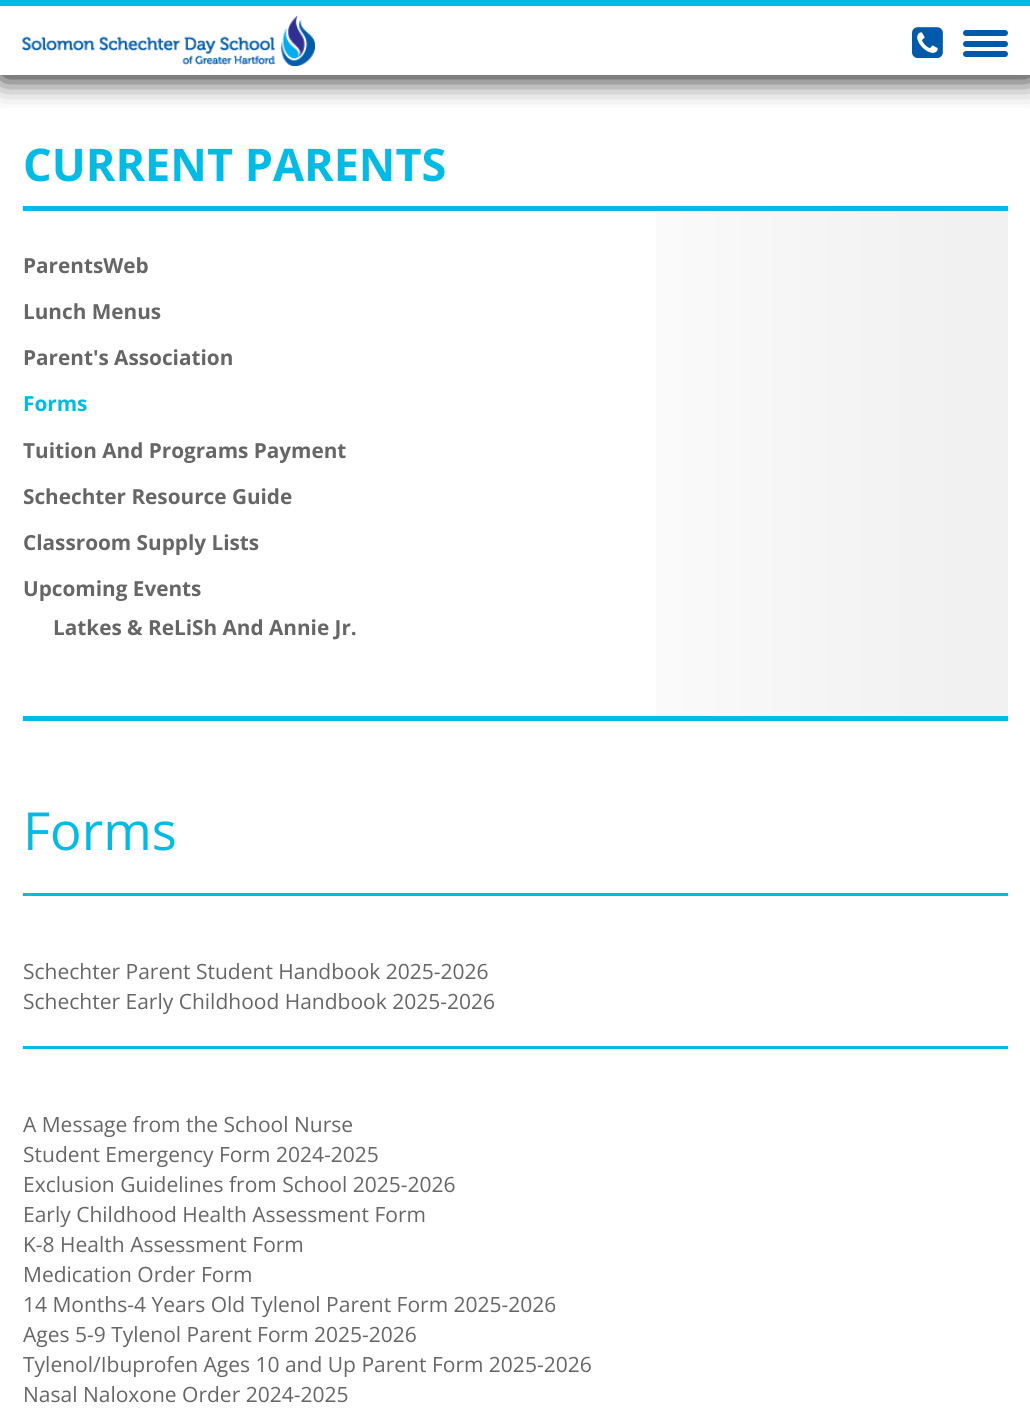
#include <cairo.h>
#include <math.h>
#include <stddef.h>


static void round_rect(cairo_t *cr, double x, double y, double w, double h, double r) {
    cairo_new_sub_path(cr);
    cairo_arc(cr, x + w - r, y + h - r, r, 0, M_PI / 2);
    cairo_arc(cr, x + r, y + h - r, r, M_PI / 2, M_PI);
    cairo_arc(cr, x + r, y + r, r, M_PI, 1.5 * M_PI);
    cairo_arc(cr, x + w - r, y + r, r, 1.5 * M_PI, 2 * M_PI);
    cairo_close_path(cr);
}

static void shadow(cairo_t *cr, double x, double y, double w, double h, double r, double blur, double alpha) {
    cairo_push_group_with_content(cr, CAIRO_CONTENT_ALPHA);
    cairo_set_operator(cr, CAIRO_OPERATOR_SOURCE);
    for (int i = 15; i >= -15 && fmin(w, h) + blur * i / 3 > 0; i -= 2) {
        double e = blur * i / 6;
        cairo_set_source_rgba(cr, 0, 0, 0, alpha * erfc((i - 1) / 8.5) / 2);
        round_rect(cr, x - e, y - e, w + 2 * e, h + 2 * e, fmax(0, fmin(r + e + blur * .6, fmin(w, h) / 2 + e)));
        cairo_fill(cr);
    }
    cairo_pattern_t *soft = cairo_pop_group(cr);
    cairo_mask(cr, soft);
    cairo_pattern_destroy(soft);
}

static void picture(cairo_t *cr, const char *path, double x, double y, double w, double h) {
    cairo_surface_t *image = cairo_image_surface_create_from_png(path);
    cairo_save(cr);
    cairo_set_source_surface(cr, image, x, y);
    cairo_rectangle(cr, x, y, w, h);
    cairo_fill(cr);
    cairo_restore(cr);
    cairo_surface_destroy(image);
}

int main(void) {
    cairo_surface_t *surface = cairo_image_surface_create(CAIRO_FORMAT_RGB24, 1030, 1412);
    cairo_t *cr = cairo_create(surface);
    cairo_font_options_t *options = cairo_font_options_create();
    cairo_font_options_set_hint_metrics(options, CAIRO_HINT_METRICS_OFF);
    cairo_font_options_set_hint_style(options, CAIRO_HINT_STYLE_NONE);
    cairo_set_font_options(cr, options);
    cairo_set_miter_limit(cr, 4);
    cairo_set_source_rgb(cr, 1, 1, 1);
    cairo_paint(cr);
    cairo_save(cr);
    cairo_rectangle(cr, 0, 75, 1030, 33);
    cairo_clip(cr);
    cairo_set_source_rgb(cr, 0, 0, 0);
    shadow(cr, 2, 2, 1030, 75, 0, 15, 1);
    cairo_restore(cr);
    cairo_set_source_rgb(cr, 0, 0.737, 0.894);
    cairo_rectangle(cr, 0, 0, 1030, 6);
    cairo_fill(cr);
    picture(cr, "img1.png", 22, 15, 293, 51);
    picture(cr, "img2.png", 912, 27, 31, 32);
    cairo_set_source_rgb(cr, 0, 0.353, 0.667);
    round_rect(cr, 963, 30, 45, 6, 3);
    cairo_fill(cr);
    round_rect(cr, 963, 41, 45, 6, 3);
    cairo_fill(cr);
    round_rect(cr, 963, 51, 45, 6, 3);
    cairo_fill(cr);
    cairo_select_font_face(cr, "Open Sans", CAIRO_FONT_SLANT_NORMAL, CAIRO_FONT_WEIGHT_BOLD);
    cairo_set_font_size(cr, 45);
    cairo_set_source_rgb(cr, 0, 0.737, 0.894);
    cairo_move_to(cr, 23, 181);
    cairo_show_text(cr, "CURRENT PARENTS");
    picture(cr, "img3.png", 656, 205, 352, 511);
    cairo_rectangle(cr, 23, 206, 985, 5);
    cairo_fill(cr);
    cairo_rectangle(cr, 23, 716, 985, 5);
    cairo_fill(cr);
    cairo_set_font_size(cr, 20.75);
    cairo_set_source_rgb(cr, 0.4, 0.4, 0.4);
    cairo_move_to(cr, 23, 273);
    cairo_show_text(cr, "ParentsWeb");
    cairo_move_to(cr, 23, 319);
    cairo_show_text(cr, "Lunch Menus");
    cairo_move_to(cr, 23, 365);
    cairo_show_text(cr, "Parent's Association");
    cairo_set_source_rgb(cr, 0, 0.737, 0.894);
    cairo_move_to(cr, 23, 411);
    cairo_show_text(cr, "Forms");
    cairo_set_source_rgb(cr, 0.4, 0.4, 0.4);
    cairo_move_to(cr, 23, 458);
    cairo_show_text(cr, "Tuition And Programs Payment");
    cairo_move_to(cr, 23, 504);
    cairo_show_text(cr, "Schechter Resource Guide");
    cairo_move_to(cr, 23, 550);
    cairo_show_text(cr, "Classroom Supply Lists");
    cairo_move_to(cr, 23, 596);
    cairo_show_text(cr, "Upcoming Events");
    cairo_move_to(cr, 53, 635);
    cairo_show_text(cr, "Latkes & ReLiSh And Annie Jr.");
    cairo_select_font_face(cr, "Open Sans", CAIRO_FONT_SLANT_NORMAL, CAIRO_FONT_WEIGHT_NORMAL);
    cairo_set_font_size(cr, 52.5);
    cairo_set_source_rgb(cr, 0, 0.737, 0.894);
    cairo_move_to(cr, 23, 850);
    cairo_show_text(cr, "Forms");
    cairo_rectangle(cr, 23, 893, 985, 3);
    cairo_fill(cr);
    cairo_set_font_size(cr, 21);
    cairo_set_source_rgb(cr, 0.4, 0.4, 0.4);
    cairo_move_to(cr, 23, 979);
    cairo_show_text(cr, "Schechter Parent Student Handbook 2025-2026");
    cairo_move_to(cr, 23, 1009);
    cairo_show_text(cr, "Schechter Early Childhood Handbook 2025-2026");
    cairo_set_source_rgb(cr, 0, 0.737, 0.894);
    cairo_rectangle(cr, 23, 1046, 985, 3);
    cairo_fill(cr);
    cairo_set_source_rgb(cr, 0.4, 0.4, 0.4);
    cairo_move_to(cr, 23, 1132);
    cairo_show_text(cr, "A Message from the School Nurse");
    cairo_move_to(cr, 23, 1162);
    cairo_show_text(cr, "Student Emergency Form 2024-2025");
    cairo_move_to(cr, 23, 1192);
    cairo_show_text(cr, "Exclusion Guidelines from School 2025-2026");
    cairo_move_to(cr, 23, 1222);
    cairo_show_text(cr, "Early Childhood Health Assessment Form");
    cairo_move_to(cr, 23, 1252);
    cairo_show_text(cr, "K-8 Health Assessment Form");
    cairo_move_to(cr, 23, 1282);
    cairo_show_text(cr, "Medication Order Form");
    cairo_move_to(cr, 23, 1312);
    cairo_show_text(cr, "14 Months-4 Years Old Tylenol Parent Form 2025-2026");
    cairo_move_to(cr, 23, 1342);
    cairo_show_text(cr, "Ages 5-9 Tylenol Parent Form 2025-2026");
    cairo_move_to(cr, 23, 1372);
    cairo_show_text(cr, "Tylenol/Ibuprofen Ages 10 and Up Parent Form 2025-2026");
    cairo_move_to(cr, 23, 1402);
    cairo_show_text(cr, "Nasal Naloxone Order 2024-2025");
    cairo_surface_write_to_png(surface, "page.png");
    cairo_font_options_destroy(options);
    cairo_destroy(cr);
    cairo_surface_destroy(surface);
    return 0;
}
